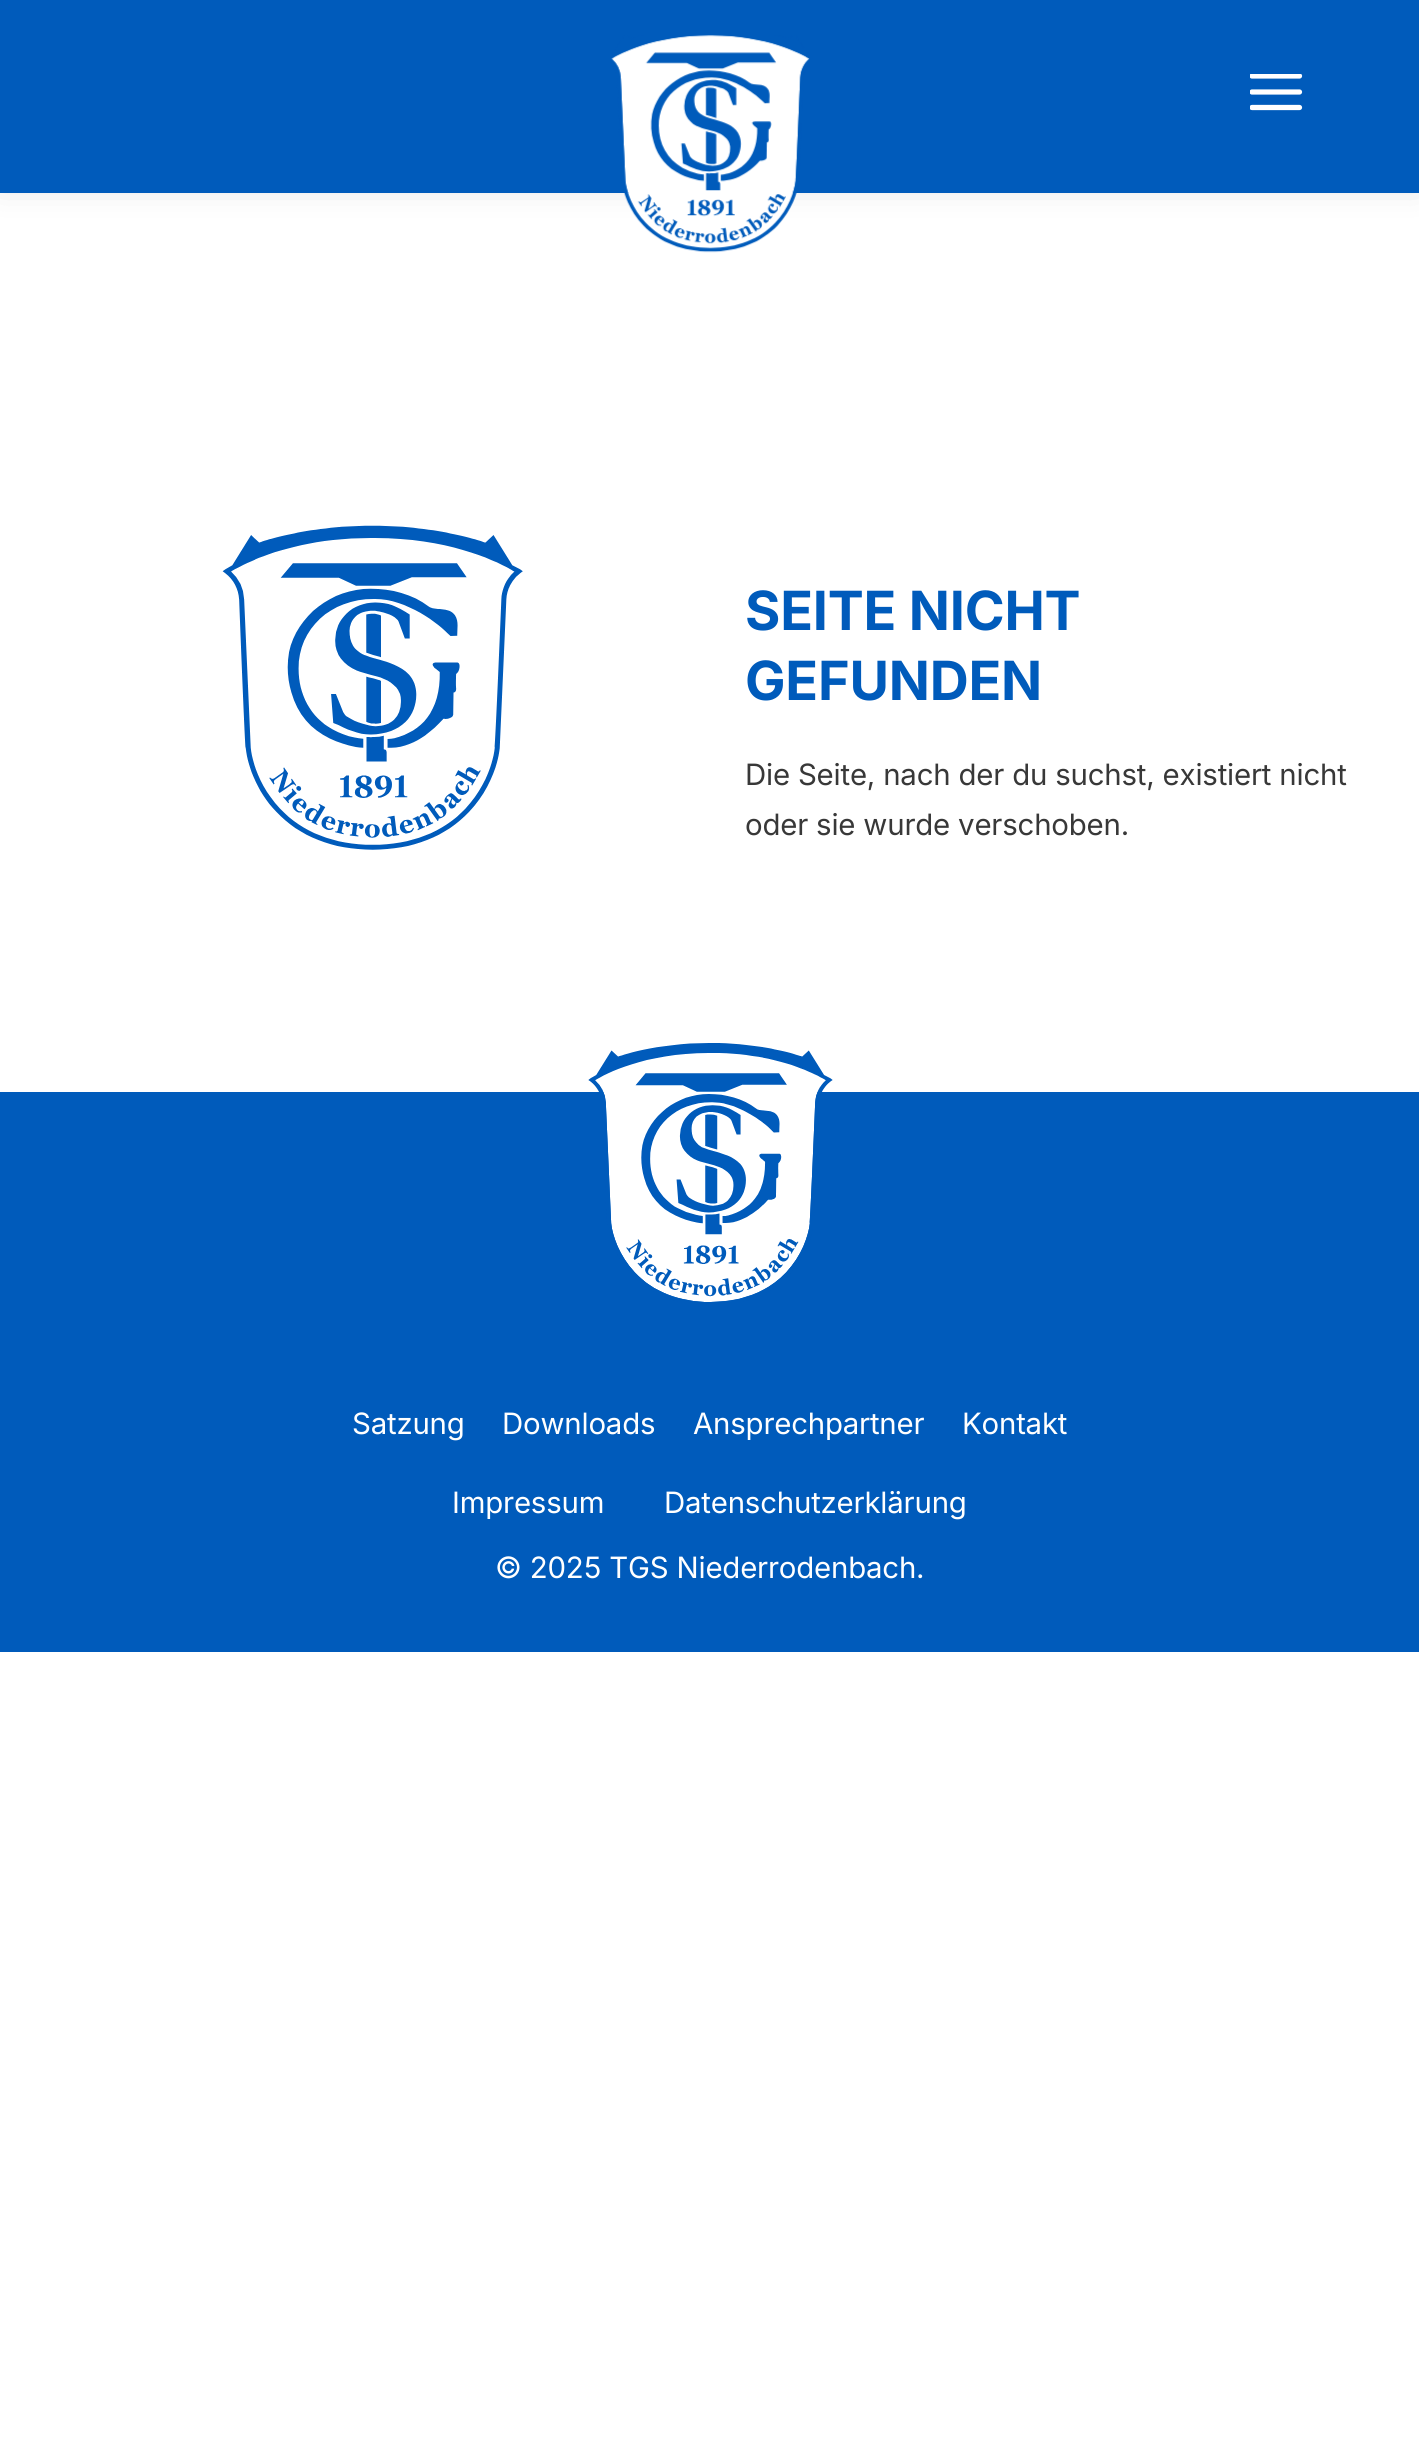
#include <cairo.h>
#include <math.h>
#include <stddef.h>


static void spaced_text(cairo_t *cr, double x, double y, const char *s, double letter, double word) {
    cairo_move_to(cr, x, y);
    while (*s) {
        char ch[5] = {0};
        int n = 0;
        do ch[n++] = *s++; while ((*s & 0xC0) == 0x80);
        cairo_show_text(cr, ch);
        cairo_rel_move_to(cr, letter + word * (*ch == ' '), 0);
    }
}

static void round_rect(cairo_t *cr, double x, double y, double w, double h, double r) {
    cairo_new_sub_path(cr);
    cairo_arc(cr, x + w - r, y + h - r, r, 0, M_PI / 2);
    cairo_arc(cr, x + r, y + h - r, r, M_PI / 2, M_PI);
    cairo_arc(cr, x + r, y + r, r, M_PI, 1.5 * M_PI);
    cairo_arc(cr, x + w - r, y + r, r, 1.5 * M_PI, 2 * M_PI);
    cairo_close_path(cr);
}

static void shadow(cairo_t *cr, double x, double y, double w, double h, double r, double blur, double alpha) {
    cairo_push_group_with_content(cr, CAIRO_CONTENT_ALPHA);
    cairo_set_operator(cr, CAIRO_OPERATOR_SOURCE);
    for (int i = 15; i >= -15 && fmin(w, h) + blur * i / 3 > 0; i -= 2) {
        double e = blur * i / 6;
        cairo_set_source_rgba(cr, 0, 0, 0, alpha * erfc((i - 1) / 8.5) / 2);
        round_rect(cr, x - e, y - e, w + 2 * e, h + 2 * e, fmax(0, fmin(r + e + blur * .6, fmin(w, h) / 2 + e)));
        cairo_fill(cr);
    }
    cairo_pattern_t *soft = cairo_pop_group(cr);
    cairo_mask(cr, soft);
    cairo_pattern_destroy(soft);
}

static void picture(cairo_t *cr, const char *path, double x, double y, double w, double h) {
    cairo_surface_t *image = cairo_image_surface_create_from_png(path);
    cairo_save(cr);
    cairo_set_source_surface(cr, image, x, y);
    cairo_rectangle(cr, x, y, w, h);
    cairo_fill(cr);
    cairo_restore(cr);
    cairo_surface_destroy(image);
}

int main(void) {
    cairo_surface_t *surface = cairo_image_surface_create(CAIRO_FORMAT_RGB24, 1419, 2464);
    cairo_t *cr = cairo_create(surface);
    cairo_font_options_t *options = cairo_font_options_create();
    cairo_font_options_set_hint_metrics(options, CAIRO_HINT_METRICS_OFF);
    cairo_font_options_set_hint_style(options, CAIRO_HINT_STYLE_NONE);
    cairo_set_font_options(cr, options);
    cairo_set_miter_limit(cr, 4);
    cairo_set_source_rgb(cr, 1, 1, 1);
    cairo_paint(cr);
    cairo_set_source_rgb(cr, 0, 0, 0);
    shadow(cr, 0, -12, 1419, 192, 0, 17.5, 0.2);
    cairo_set_source_rgb(cr, 0, 0.357, 0.733);
    cairo_rectangle(cr, 0, 0, 1419, 193);
    cairo_fill(cr);
    picture(cr, "img1.png", 611, 35, 199, 218);
    cairo_save(cr);
    cairo_rectangle(cr, 1250, 74, 70, 49);
    cairo_clip(cr);
    cairo_new_path(cr);
    cairo_move_to(cr, 1252, 92);
    cairo_line_to(cr, 1299.5, 92);
    cairo_move_to(cr, 1252, 76);
    cairo_line_to(cr, 1299.5, 76);
    cairo_move_to(cr, 1252, 107.5);
    cairo_line_to(cr, 1299.5, 107.5);
    cairo_set_source_rgb(cr, 1, 1, 1);
    cairo_set_line_width(cr, 5.2);
    cairo_set_line_cap(cr, CAIRO_LINE_CAP_ROUND);
    cairo_set_line_join(cr, CAIRO_LINE_JOIN_ROUND);
    cairo_stroke(cr);
    cairo_restore(cr);
    picture(cr, "img2.png", 222, 525, 301, 325);
    cairo_select_font_face(cr, "Inter", CAIRO_FONT_SLANT_NORMAL, CAIRO_FONT_WEIGHT_BOLD);
    cairo_set_font_size(cr, 54);
    spaced_text(cr, 745, 630, "SEITE NICHT", -0.2, 0);
    spaced_text(cr, 745, 700, "GEFUNDEN", -0.2, 0);
    cairo_select_font_face(cr, "Inter", CAIRO_FONT_SLANT_NORMAL, CAIRO_FONT_WEIGHT_NORMAL);
    cairo_set_font_size(cr, 29.4);
    cairo_set_source_rgb(cr, 0.22, 0.22, 0.22);
    spaced_text(cr, 745, 785, "Die Seite, nach der du suchst, existiert nicht", -0.2, 0);
    spaced_text(cr, 745, 835, "oder sie wurde verschoben.", -0.2, 0);
    cairo_set_source_rgb(cr, 0, 0.357, 0.733);
    cairo_rectangle(cr, 0, 1092, 1419, 560);
    cairo_fill(cr);
    picture(cr, "img3.png", 588, 1043, 245, 259);
    cairo_set_source_rgb(cr, 1, 1, 1);
    spaced_text(cr, 352, 1434, "Satzung", -0.2, 0);
    spaced_text(cr, 502, 1434, "Downloads", -0.2, 0);
    spaced_text(cr, 693, 1434, "Ansprechpartner", -0.2, 0);
    spaced_text(cr, 962, 1434, "Kontakt", -0.2, 0);
    spaced_text(cr, 452, 1513, "Impressum", -0.2, 0);
    spaced_text(cr, 664, 1513, "Datenschutzerklärung", -0.2, 0);
    spaced_text(cr, 495, 1578, "© 2025 TGS Niederrodenbach.", -0.2, 0);
    cairo_surface_write_to_png(surface, "page.png");
    cairo_font_options_destroy(options);
    cairo_destroy(cr);
    cairo_surface_destroy(surface);
    return 0;
}
